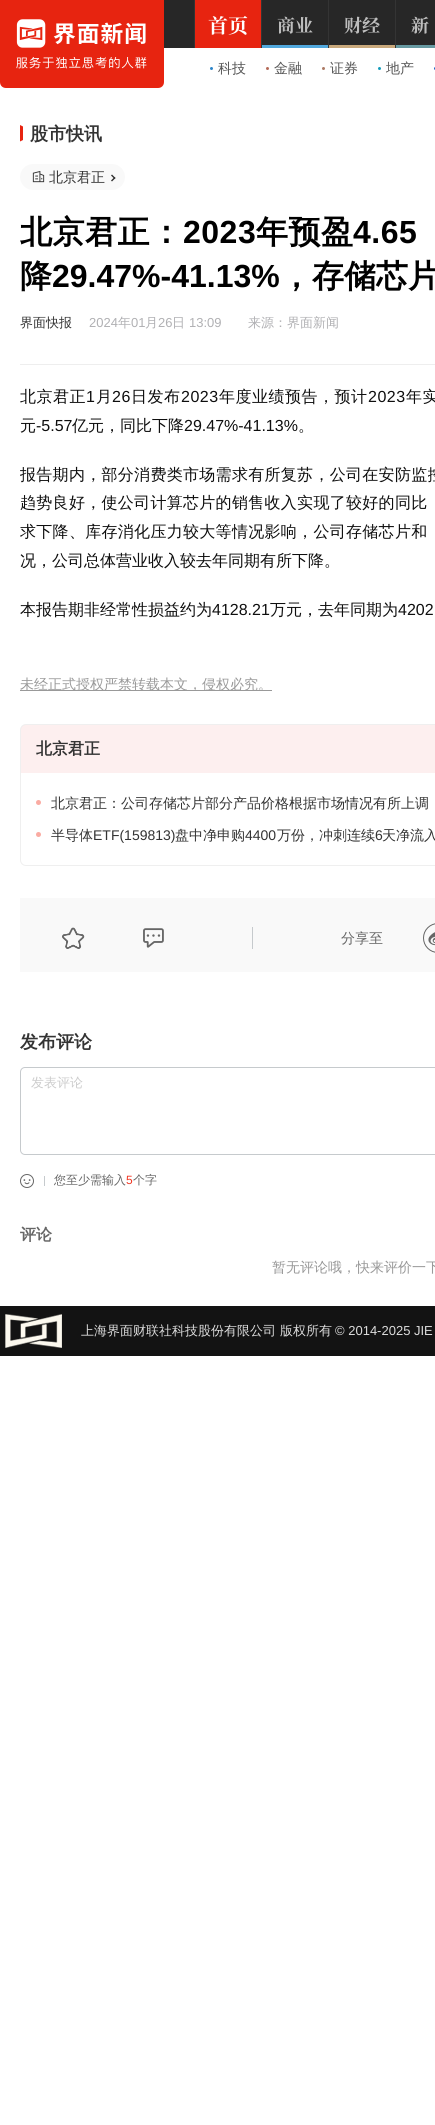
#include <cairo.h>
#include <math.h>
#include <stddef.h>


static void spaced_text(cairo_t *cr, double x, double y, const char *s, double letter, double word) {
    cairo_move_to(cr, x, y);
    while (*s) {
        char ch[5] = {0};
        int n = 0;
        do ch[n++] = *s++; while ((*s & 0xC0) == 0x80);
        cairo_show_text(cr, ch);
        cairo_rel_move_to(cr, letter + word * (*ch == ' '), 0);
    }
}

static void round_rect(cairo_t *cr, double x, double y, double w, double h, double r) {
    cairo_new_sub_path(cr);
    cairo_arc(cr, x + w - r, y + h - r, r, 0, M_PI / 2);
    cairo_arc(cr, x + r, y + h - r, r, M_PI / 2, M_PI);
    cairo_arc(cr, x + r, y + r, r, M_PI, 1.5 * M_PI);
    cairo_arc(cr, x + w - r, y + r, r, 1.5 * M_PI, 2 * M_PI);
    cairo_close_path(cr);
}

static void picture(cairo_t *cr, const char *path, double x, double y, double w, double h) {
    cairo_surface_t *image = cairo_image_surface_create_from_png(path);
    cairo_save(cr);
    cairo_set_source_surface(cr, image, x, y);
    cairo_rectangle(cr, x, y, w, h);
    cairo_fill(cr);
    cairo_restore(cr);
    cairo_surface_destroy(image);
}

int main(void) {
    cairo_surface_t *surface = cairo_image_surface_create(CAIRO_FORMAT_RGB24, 435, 2125);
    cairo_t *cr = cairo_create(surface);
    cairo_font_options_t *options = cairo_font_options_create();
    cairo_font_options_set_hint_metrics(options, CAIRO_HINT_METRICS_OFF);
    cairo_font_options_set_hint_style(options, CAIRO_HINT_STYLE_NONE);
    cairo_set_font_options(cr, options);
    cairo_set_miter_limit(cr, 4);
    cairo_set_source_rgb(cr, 1, 1, 1);
    cairo_paint(cr);
    cairo_set_source_rgb(cr, 0.906, 0.141, 0.063);
    cairo_new_path(cr);
    cairo_move_to(cr, 0, 0);
    cairo_line_to(cr, 164, 0);
    cairo_line_to(cr, 164, 82);
    cairo_curve_to(cr, 164, 85.5, 161.5, 88, 158, 88);
    cairo_line_to(cr, 6, 88);
    cairo_curve_to(cr, 2.5, 88, 0, 85.5, 0, 82);
    cairo_close_path(cr);
    cairo_fill(cr);
    picture(cr, "img1.png", 16, 19, 131, 50);
    cairo_set_source_rgb(cr, 0.153, 0.153, 0.153);
    cairo_rectangle(cr, 164, 0, 271, 48);
    cairo_fill(cr);
    cairo_set_source_rgb(cr, 0.204, 0.204, 0.204);
    cairo_rectangle(cr, 261, 0, 1, 48);
    cairo_fill(cr);
    cairo_rectangle(cr, 194, 0, 1, 48);
    cairo_fill(cr);
    cairo_set_source_rgb(cr, 0.906, 0.141, 0.063);
    cairo_rectangle(cr, 195, 0, 66, 48);
    cairo_fill(cr);
    cairo_select_font_face(cr, "Noto Serif SC", CAIRO_FONT_SLANT_NORMAL, CAIRO_FONT_WEIGHT_BOLD);
    cairo_set_font_size(cr, 20);
    cairo_set_source_rgb(cr, 1, 1, 1);
    cairo_move_to(cr, 208, 33);
    cairo_show_text(cr, "首页");
    cairo_set_source_rgb(cr, 0.173, 0.522, 0.788);
    cairo_new_path(cr);
    cairo_arc(cr, 211.5, 68.5, 1.5, 0, 2 * M_PI);
    cairo_fill(cr);
    cairo_select_font_face(cr, "WenQuanYi Zen Hei Medium", CAIRO_FONT_SLANT_NORMAL, CAIRO_FONT_WEIGHT_NORMAL);
    cairo_set_font_size(cr, 14);
    cairo_set_source_rgb(cr, 0.333, 0.333, 0.333);
    cairo_move_to(cr, 218, 73);
    cairo_show_text(cr, "科技");
    cairo_set_source_rgb(cr, 0.71, 0.416, 0.345);
    cairo_new_path(cr);
    cairo_arc(cr, 267.5, 68.5, 1.5, 0, 2 * M_PI);
    cairo_fill(cr);
    cairo_set_source_rgb(cr, 0.333, 0.333, 0.333);
    cairo_move_to(cr, 274, 73);
    cairo_show_text(cr, "金融");
    cairo_set_source_rgb(cr, 0.675, 0.478, 0.392);
    cairo_new_path(cr);
    cairo_arc(cr, 323.5, 68.5, 1.5, 0, 2 * M_PI);
    cairo_fill(cr);
    cairo_set_source_rgb(cr, 0.333, 0.333, 0.333);
    cairo_move_to(cr, 330, 73);
    cairo_show_text(cr, "证券");
    cairo_set_source_rgb(cr, 0.082, 0.612, 0.733);
    cairo_new_path(cr);
    cairo_arc(cr, 379.5, 68.5, 1.5, 0, 2 * M_PI);
    cairo_fill(cr);
    cairo_set_source_rgb(cr, 0.333, 0.333, 0.333);
    cairo_move_to(cr, 386, 73);
    cairo_show_text(cr, "地产");
    cairo_set_source_rgb(cr, 0.098, 0.38, 0.769);
    cairo_new_path(cr);
    cairo_arc(cr, 435.5, 68.5, 1.5, 0, 2 * M_PI);
    cairo_fill(cr);
    cairo_set_source_rgb(cr, 0.204, 0.204, 0.204);
    cairo_rectangle(cr, 328, 0, 1, 48);
    cairo_fill(cr);
    cairo_select_font_face(cr, "Noto Serif SC", CAIRO_FONT_SLANT_NORMAL, CAIRO_FONT_WEIGHT_BOLD);
    cairo_set_font_size(cr, 18);
    cairo_set_source_rgb(cr, 0.745, 0.745, 0.745);
    cairo_move_to(cr, 277, 32);
    cairo_show_text(cr, "商业");
    cairo_set_source_rgb(cr, 0.318, 0.659, 0.867);
    cairo_rectangle(cr, 262, 45, 66, 3);
    cairo_fill(cr);
    cairo_set_source_rgb(cr, 0.204, 0.204, 0.204);
    cairo_rectangle(cr, 395, 0, 1, 48);
    cairo_fill(cr);
    cairo_set_source_rgb(cr, 0.745, 0.745, 0.745);
    cairo_move_to(cr, 344, 32);
    cairo_show_text(cr, "财经");
    cairo_set_source_rgb(cr, 0.784, 0.659, 0.482);
    cairo_rectangle(cr, 329, 45, 66, 3);
    cairo_fill(cr);
    cairo_set_source_rgb(cr, 0.745, 0.745, 0.745);
    cairo_move_to(cr, 411, 32);
    cairo_show_text(cr, "新");
    cairo_set_source_rgb(cr, 0.4, 0.6, 0.631);
    cairo_rectangle(cr, 396, 45, 39, 3);
    cairo_fill(cr);
    cairo_set_source_rgb(cr, 0.906, 0.141, 0.063);
    cairo_new_path(cr);
    cairo_move_to(cr, 23, 126.5);
    cairo_line_to(cr, 20, 125);
    cairo_line_to(cr, 20, 141.5);
    cairo_line_to(cr, 23, 140);
    cairo_close_path(cr);
    cairo_fill(cr);
    cairo_select_font_face(cr, "WenQuanYi Zen Hei", CAIRO_FONT_SLANT_NORMAL, CAIRO_FONT_WEIGHT_BOLD);
    cairo_set_source_rgb(cr, 0.2, 0.2, 0.2);
    cairo_move_to(cr, 30, 140);
    cairo_show_text(cr, "股市快讯");
    cairo_set_source_rgb(cr, 0.973, 0.973, 0.973);
    round_rect(cr, 20, 164, 105, 26, 13);
    cairo_fill(cr);
    picture(cr, "img2.png", 32, 171, 13, 12);
    cairo_select_font_face(cr, "WenQuanYi Zen Hei Medium", CAIRO_FONT_SLANT_NORMAL, CAIRO_FONT_WEIGHT_NORMAL);
    cairo_set_font_size(cr, 14);
    cairo_set_source_rgb(cr, 0.2, 0.2, 0.2);
    cairo_move_to(cr, 49, 182);
    cairo_show_text(cr, "北京君正");
    cairo_new_path(cr);
    cairo_move_to(cr, 112, 174.5);
    cairo_line_to(cr, 115.5, 178);
    cairo_line_to(cr, 114.5, 179);
    cairo_line_to(cr, 111, 175.5);
    cairo_close_path(cr);
    cairo_fill(cr);
    cairo_new_path(cr);
    cairo_move_to(cr, 114.5, 177);
    cairo_line_to(cr, 115.5, 178);
    cairo_line_to(cr, 112, 181.5);
    cairo_line_to(cr, 111, 180.5);
    cairo_close_path(cr);
    cairo_fill(cr);
    cairo_select_font_face(cr, "WenQuanYi Zen Hei", CAIRO_FONT_SLANT_NORMAL, CAIRO_FONT_WEIGHT_BOLD);
    cairo_set_font_size(cr, 32);
    cairo_set_source_rgb(cr, 0, 0, 0);
    spaced_text(cr, 20, 243, "北京君正：", 0.5, 0);
    cairo_select_font_face(cr, "Liberation Sans", CAIRO_FONT_SLANT_NORMAL, CAIRO_FONT_WEIGHT_BOLD);
    spaced_text(cr, 183, 243, "2023", 0.5, 0);
    cairo_select_font_face(cr, "WenQuanYi Zen Hei", CAIRO_FONT_SLANT_NORMAL, CAIRO_FONT_WEIGHT_BOLD);
    spaced_text(cr, 256, 243, "年预盈", 0.5, 0);
    cairo_select_font_face(cr, "Liberation Sans", CAIRO_FONT_SLANT_NORMAL, CAIRO_FONT_WEIGHT_BOLD);
    spaced_text(cr, 353, 243, "4.65", 0.5, 0);
    cairo_select_font_face(cr, "WenQuanYi Zen Hei", CAIRO_FONT_SLANT_NORMAL, CAIRO_FONT_WEIGHT_BOLD);
    cairo_move_to(cr, 20, 287);
    cairo_show_text(cr, "降");
    cairo_select_font_face(cr, "Liberation Sans", CAIRO_FONT_SLANT_NORMAL, CAIRO_FONT_WEIGHT_BOLD);
    cairo_move_to(cr, 52, 287);
    cairo_show_text(cr, "29.47%-41.13%");
    cairo_select_font_face(cr, "WenQuanYi Zen Hei", CAIRO_FONT_SLANT_NORMAL, CAIRO_FONT_WEIGHT_BOLD);
    cairo_move_to(cr, 280, 287);
    cairo_show_text(cr, "，存储芯片");
    cairo_select_font_face(cr, "WenQuanYi Zen Hei Medium", CAIRO_FONT_SLANT_NORMAL, CAIRO_FONT_WEIGHT_NORMAL);
    cairo_set_font_size(cr, 13);
    cairo_set_source_rgb(cr, 0.2, 0.2, 0.2);
    cairo_move_to(cr, 20, 327);
    cairo_show_text(cr, "界面快报");
    cairo_select_font_face(cr, "Liberation Sans", CAIRO_FONT_SLANT_NORMAL, CAIRO_FONT_WEIGHT_NORMAL);
    cairo_set_source_rgb(cr, 0.69, 0.69, 0.702);
    cairo_move_to(cr, 89, 327);
    cairo_show_text(cr, "2024");
    cairo_select_font_face(cr, "WenQuanYi Zen Hei Medium", CAIRO_FONT_SLANT_NORMAL, CAIRO_FONT_WEIGHT_NORMAL);
    cairo_move_to(cr, 118, 327);
    cairo_show_text(cr, "年");
    cairo_select_font_face(cr, "Liberation Sans", CAIRO_FONT_SLANT_NORMAL, CAIRO_FONT_WEIGHT_NORMAL);
    cairo_move_to(cr, 131, 327);
    cairo_show_text(cr, "01");
    cairo_select_font_face(cr, "WenQuanYi Zen Hei Medium", CAIRO_FONT_SLANT_NORMAL, CAIRO_FONT_WEIGHT_NORMAL);
    cairo_move_to(cr, 145, 327);
    cairo_show_text(cr, "月");
    cairo_select_font_face(cr, "Liberation Sans", CAIRO_FONT_SLANT_NORMAL, CAIRO_FONT_WEIGHT_NORMAL);
    cairo_move_to(cr, 158, 327);
    cairo_show_text(cr, "26");
    cairo_select_font_face(cr, "WenQuanYi Zen Hei Medium", CAIRO_FONT_SLANT_NORMAL, CAIRO_FONT_WEIGHT_NORMAL);
    cairo_move_to(cr, 172, 327);
    cairo_show_text(cr, "日");
    cairo_select_font_face(cr, "Liberation Sans", CAIRO_FONT_SLANT_NORMAL, CAIRO_FONT_WEIGHT_NORMAL);
    cairo_move_to(cr, 189, 327);
    cairo_show_text(cr, "13:09");
    cairo_select_font_face(cr, "WenQuanYi Zen Hei Medium", CAIRO_FONT_SLANT_NORMAL, CAIRO_FONT_WEIGHT_NORMAL);
    cairo_move_to(cr, 248, 327);
    cairo_show_text(cr, "来源：界面新闻");
    cairo_set_source_rgb(cr, 0.933, 0.933, 0.933);
    cairo_rectangle(cr, 20, 364, 415, 1);
    cairo_fill(cr);
    cairo_set_font_size(cr, 16);
    cairo_set_source_rgb(cr, 0.055, 0.055, 0.055);
    spaced_text(cr, 20, 402, "北京君正", 0.5, 0);
    cairo_select_font_face(cr, "Liberation Sans", CAIRO_FONT_SLANT_NORMAL, CAIRO_FONT_WEIGHT_NORMAL);
    spaced_text(cr, 86, 402, "1", 0.5, 0);
    cairo_select_font_face(cr, "WenQuanYi Zen Hei Medium", CAIRO_FONT_SLANT_NORMAL, CAIRO_FONT_WEIGHT_NORMAL);
    spaced_text(cr, 96, 402, "月", 0.5, 0);
    cairo_select_font_face(cr, "Liberation Sans", CAIRO_FONT_SLANT_NORMAL, CAIRO_FONT_WEIGHT_NORMAL);
    spaced_text(cr, 112, 402, "26", 0.5, 0);
    cairo_select_font_face(cr, "WenQuanYi Zen Hei Medium", CAIRO_FONT_SLANT_NORMAL, CAIRO_FONT_WEIGHT_NORMAL);
    spaced_text(cr, 131, 402, "日发布", 0.5, 0);
    cairo_select_font_face(cr, "Liberation Sans", CAIRO_FONT_SLANT_NORMAL, CAIRO_FONT_WEIGHT_NORMAL);
    spaced_text(cr, 181, 402, "2023", 0.5, 0);
    cairo_select_font_face(cr, "WenQuanYi Zen Hei Medium", CAIRO_FONT_SLANT_NORMAL, CAIRO_FONT_WEIGHT_NORMAL);
    spaced_text(cr, 219, 402, "年度业绩预告，预计", 0.5, 0);
    cairo_select_font_face(cr, "Liberation Sans", CAIRO_FONT_SLANT_NORMAL, CAIRO_FONT_WEIGHT_NORMAL);
    spaced_text(cr, 368, 402, "2023", 0.5, 0);
    cairo_select_font_face(cr, "WenQuanYi Zen Hei Medium", CAIRO_FONT_SLANT_NORMAL, CAIRO_FONT_WEIGHT_NORMAL);
    spaced_text(cr, 406, 402, "年实", 0.5, 0);
    cairo_move_to(cr, 20, 431);
    cairo_show_text(cr, "元");
    cairo_select_font_face(cr, "Liberation Sans", CAIRO_FONT_SLANT_NORMAL, CAIRO_FONT_WEIGHT_NORMAL);
    cairo_move_to(cr, 36, 431);
    cairo_show_text(cr, "-5.57");
    cairo_select_font_face(cr, "WenQuanYi Zen Hei Medium", CAIRO_FONT_SLANT_NORMAL, CAIRO_FONT_WEIGHT_NORMAL);
    cairo_move_to(cr, 72, 431);
    cairo_show_text(cr, "亿元，同比下降");
    cairo_select_font_face(cr, "Liberation Sans", CAIRO_FONT_SLANT_NORMAL, CAIRO_FONT_WEIGHT_NORMAL);
    cairo_move_to(cr, 184, 431);
    cairo_show_text(cr, "29.47%-41.13%");
    cairo_select_font_face(cr, "WenQuanYi Zen Hei Medium", CAIRO_FONT_SLANT_NORMAL, CAIRO_FONT_WEIGHT_NORMAL);
    cairo_move_to(cr, 298, 431);
    cairo_show_text(cr, "。");
    spaced_text(cr, 20, 480, "报告期内，部分消费类市场需求有所复苏，公司在安防监控", 0.3, 0);
    spaced_text(cr, 20, 508, "趋势良好，使公司计算芯片的销售收入实现了较好的同比", 0.3, 0);
    spaced_text(cr, 20, 537, "求下降、库存消化压力较大等情况影响，公司存储芯片和", 0.3, 0);
    cairo_move_to(cr, 20, 566);
    cairo_show_text(cr, "况，公司总体营业收入较去年同期有所下降。");
    cairo_move_to(cr, 20, 615);
    cairo_show_text(cr, "本报告期非经常性损益约为");
    cairo_select_font_face(cr, "Liberation Sans", CAIRO_FONT_SLANT_NORMAL, CAIRO_FONT_WEIGHT_NORMAL);
    cairo_move_to(cr, 212, 615);
    cairo_show_text(cr, "4128.21");
    cairo_select_font_face(cr, "WenQuanYi Zen Hei Medium", CAIRO_FONT_SLANT_NORMAL, CAIRO_FONT_WEIGHT_NORMAL);
    cairo_move_to(cr, 270, 615);
    cairo_show_text(cr, "万元，去年同期为");
    cairo_select_font_face(cr, "Liberation Sans", CAIRO_FONT_SLANT_NORMAL, CAIRO_FONT_WEIGHT_NORMAL);
    cairo_move_to(cr, 398, 615);
    cairo_show_text(cr, "4202");
    cairo_set_source_rgb(cr, 0.6, 0.6, 0.6);
    cairo_rectangle(cr, 20, 690, 252, 1);
    cairo_fill(cr);
    cairo_select_font_face(cr, "WenQuanYi Zen Hei Medium", CAIRO_FONT_SLANT_NORMAL, CAIRO_FONT_WEIGHT_NORMAL);
    cairo_set_font_size(cr, 14);
    cairo_move_to(cr, 20, 689);
    cairo_show_text(cr, "未经正式授权严禁转载本文，侵权必究。");
    round_rect(cr, 20.5, 724.5, 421, 141, 5.5);
    cairo_set_source_rgb(cr, 0.937, 0.937, 0.937);
    cairo_set_line_width(cr, 1);
    cairo_stroke(cr);
    cairo_set_source_rgba(cr, 0.918, 0.384, 0.384, 0.1);
    cairo_new_path(cr);
    cairo_move_to(cr, 26, 725);
    cairo_line_to(cr, 435, 725);
    cairo_curve_to(cr, 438, 725, 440, 727, 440, 730);
    cairo_line_to(cr, 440, 773);
    cairo_line_to(cr, 21, 773);
    cairo_line_to(cr, 21, 730);
    cairo_curve_to(cr, 21, 727, 23, 725, 26, 725);
    cairo_close_path(cr);
    cairo_fill(cr);
    cairo_select_font_face(cr, "WenQuanYi Zen Hei", CAIRO_FONT_SLANT_NORMAL, CAIRO_FONT_WEIGHT_BOLD);
    cairo_set_font_size(cr, 16);
    cairo_set_source_rgb(cr, 0.2, 0.2, 0.2);
    cairo_move_to(cr, 36, 754);
    cairo_show_text(cr, "北京君正");
    cairo_set_source_rgb(cr, 0.98, 0.671, 0.635);
    cairo_new_path(cr);
    cairo_arc(cr, 38.5, 802.5, 2.5, 0, 2 * M_PI);
    cairo_fill(cr);
    cairo_select_font_face(cr, "WenQuanYi Zen Hei Medium", CAIRO_FONT_SLANT_NORMAL, CAIRO_FONT_WEIGHT_NORMAL);
    cairo_set_font_size(cr, 14);
    cairo_set_source_rgb(cr, 0.2, 0.2, 0.2);
    cairo_move_to(cr, 51, 808);
    cairo_show_text(cr, "北京君正：公司存储芯片部分产品价格根据市场情况有所上调");
    cairo_set_source_rgb(cr, 0.98, 0.671, 0.635);
    cairo_new_path(cr);
    cairo_arc(cr, 38.5, 834.5, 2.5, 0, 2 * M_PI);
    cairo_fill(cr);
    cairo_set_source_rgb(cr, 0.2, 0.2, 0.2);
    cairo_move_to(cr, 51, 840);
    cairo_show_text(cr, "半导体");
    cairo_select_font_face(cr, "Liberation Sans", CAIRO_FONT_SLANT_NORMAL, CAIRO_FONT_WEIGHT_NORMAL);
    cairo_move_to(cr, 93, 840);
    cairo_show_text(cr, "ETF(159813)");
    cairo_select_font_face(cr, "WenQuanYi Zen Hei Medium", CAIRO_FONT_SLANT_NORMAL, CAIRO_FONT_WEIGHT_NORMAL);
    cairo_move_to(cr, 175, 840);
    cairo_show_text(cr, "盘中净申购");
    cairo_select_font_face(cr, "Liberation Sans", CAIRO_FONT_SLANT_NORMAL, CAIRO_FONT_WEIGHT_NORMAL);
    cairo_move_to(cr, 245, 840);
    cairo_show_text(cr, "4400");
    cairo_select_font_face(cr, "WenQuanYi Zen Hei Medium", CAIRO_FONT_SLANT_NORMAL, CAIRO_FONT_WEIGHT_NORMAL);
    cairo_move_to(cr, 277, 840);
    cairo_show_text(cr, "万份，冲刺连续");
    cairo_select_font_face(cr, "Liberation Sans", CAIRO_FONT_SLANT_NORMAL, CAIRO_FONT_WEIGHT_NORMAL);
    cairo_move_to(cr, 375, 840);
    cairo_show_text(cr, "6");
    cairo_select_font_face(cr, "WenQuanYi Zen Hei Medium", CAIRO_FONT_SLANT_NORMAL, CAIRO_FONT_WEIGHT_NORMAL);
    cairo_move_to(cr, 382, 840);
    cairo_show_text(cr, "天净流入");
    cairo_set_source_rgb(cr, 0.973, 0.973, 0.973);
    cairo_rectangle(cr, 20, 898, 415, 74);
    cairo_fill(cr);
    cairo_set_source_rgb(cr, 0.776, 0.792, 0.804);
    cairo_rectangle(cr, 252, 927, 1, 22);
    cairo_fill(cr);
    picture(cr, "img3.png", 62, 927, 23, 22);
    picture(cr, "img4.png", 143, 928, 21, 20);
    cairo_set_source_rgb(cr, 0.4, 0.4, 0.4);
    cairo_move_to(cr, 341, 943);
    cairo_show_text(cr, "分享至");
    round_rect(cr, 423.5, 923.5, 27, 29, 14.5);
    cairo_stroke(cr);
    picture(cr, "img5.png", 428, 932, 7, 14);
    cairo_select_font_face(cr, "WenQuanYi Zen Hei", CAIRO_FONT_SLANT_NORMAL, CAIRO_FONT_WEIGHT_BOLD);
    cairo_set_font_size(cr, 18);
    cairo_set_source_rgb(cr, 0.2, 0.2, 0.2);
    cairo_move_to(cr, 20, 1048);
    cairo_show_text(cr, "发布评论");
    round_rect(cr, 20.5, 1067.5, 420, 87, 4.5);
    cairo_set_source_rgb(cr, 0.776, 0.792, 0.804);
    cairo_stroke(cr);
    cairo_select_font_face(cr, "WenQuanYi Zen Hei Medium", CAIRO_FONT_SLANT_NORMAL, CAIRO_FONT_WEIGHT_NORMAL);
    cairo_set_font_size(cr, 13);
    cairo_set_source_rgb(cr, 0.8, 0.8, 0.8);
    cairo_move_to(cr, 31, 1087);
    cairo_show_text(cr, "发表评论");
    picture(cr, "img6.png", 20, 1174, 14, 14);
    cairo_set_source_rgb(cr, 0.776, 0.792, 0.804);
    cairo_rectangle(cr, 44, 1176, 1, 10);
    cairo_fill(cr);
    cairo_set_font_size(cr, 12);
    cairo_set_source_rgb(cr, 0.4, 0.4, 0.4);
    cairo_move_to(cr, 54, 1184);
    cairo_show_text(cr, "您至少需输入");
    cairo_select_font_face(cr, "Liberation Sans", CAIRO_FONT_SLANT_NORMAL, CAIRO_FONT_WEIGHT_NORMAL);
    cairo_set_source_rgb(cr, 0.945, 0.216, 0.137);
    cairo_move_to(cr, 126, 1184);
    cairo_show_text(cr, "5");
    cairo_select_font_face(cr, "WenQuanYi Zen Hei Medium", CAIRO_FONT_SLANT_NORMAL, CAIRO_FONT_WEIGHT_NORMAL);
    cairo_set_source_rgb(cr, 0.4, 0.4, 0.4);
    cairo_move_to(cr, 133, 1184);
    cairo_show_text(cr, "个字");
    cairo_select_font_face(cr, "WenQuanYi Zen Hei", CAIRO_FONT_SLANT_NORMAL, CAIRO_FONT_WEIGHT_BOLD);
    cairo_set_font_size(cr, 16);
    cairo_move_to(cr, 20, 1240);
    cairo_show_text(cr, "评论");
    cairo_select_font_face(cr, "WenQuanYi Zen Hei Medium", CAIRO_FONT_SLANT_NORMAL, CAIRO_FONT_WEIGHT_NORMAL);
    cairo_set_font_size(cr, 14);
    cairo_set_source_rgb(cr, 0.6, 0.6, 0.6);
    cairo_move_to(cr, 272, 1272);
    cairo_show_text(cr, "暂无评论哦，快来评价一下");
    cairo_set_source_rgb(cr, 0.078, 0.078, 0.078);
    cairo_rectangle(cr, 0, 1306, 435, 50);
    cairo_fill(cr);
    picture(cr, "img7.png", 5, 1314, 57, 34);
    cairo_set_font_size(cr, 13);
    cairo_set_source_rgb(cr, 0.867, 0.867, 0.867);
    cairo_move_to(cr, 81, 1335);
    cairo_show_text(cr, "上海界面财联社科技股份有限公司 版权所有");
    cairo_select_font_face(cr, "Liberation Sans", CAIRO_FONT_SLANT_NORMAL, CAIRO_FONT_WEIGHT_NORMAL);
    cairo_move_to(cr, 335, 1335);
    cairo_show_text(cr, "© 2014-2025 JIE");
    cairo_surface_write_to_png(surface, "page.png");
    cairo_font_options_destroy(options);
    cairo_destroy(cr);
    cairo_surface_destroy(surface);
    return 0;
}
